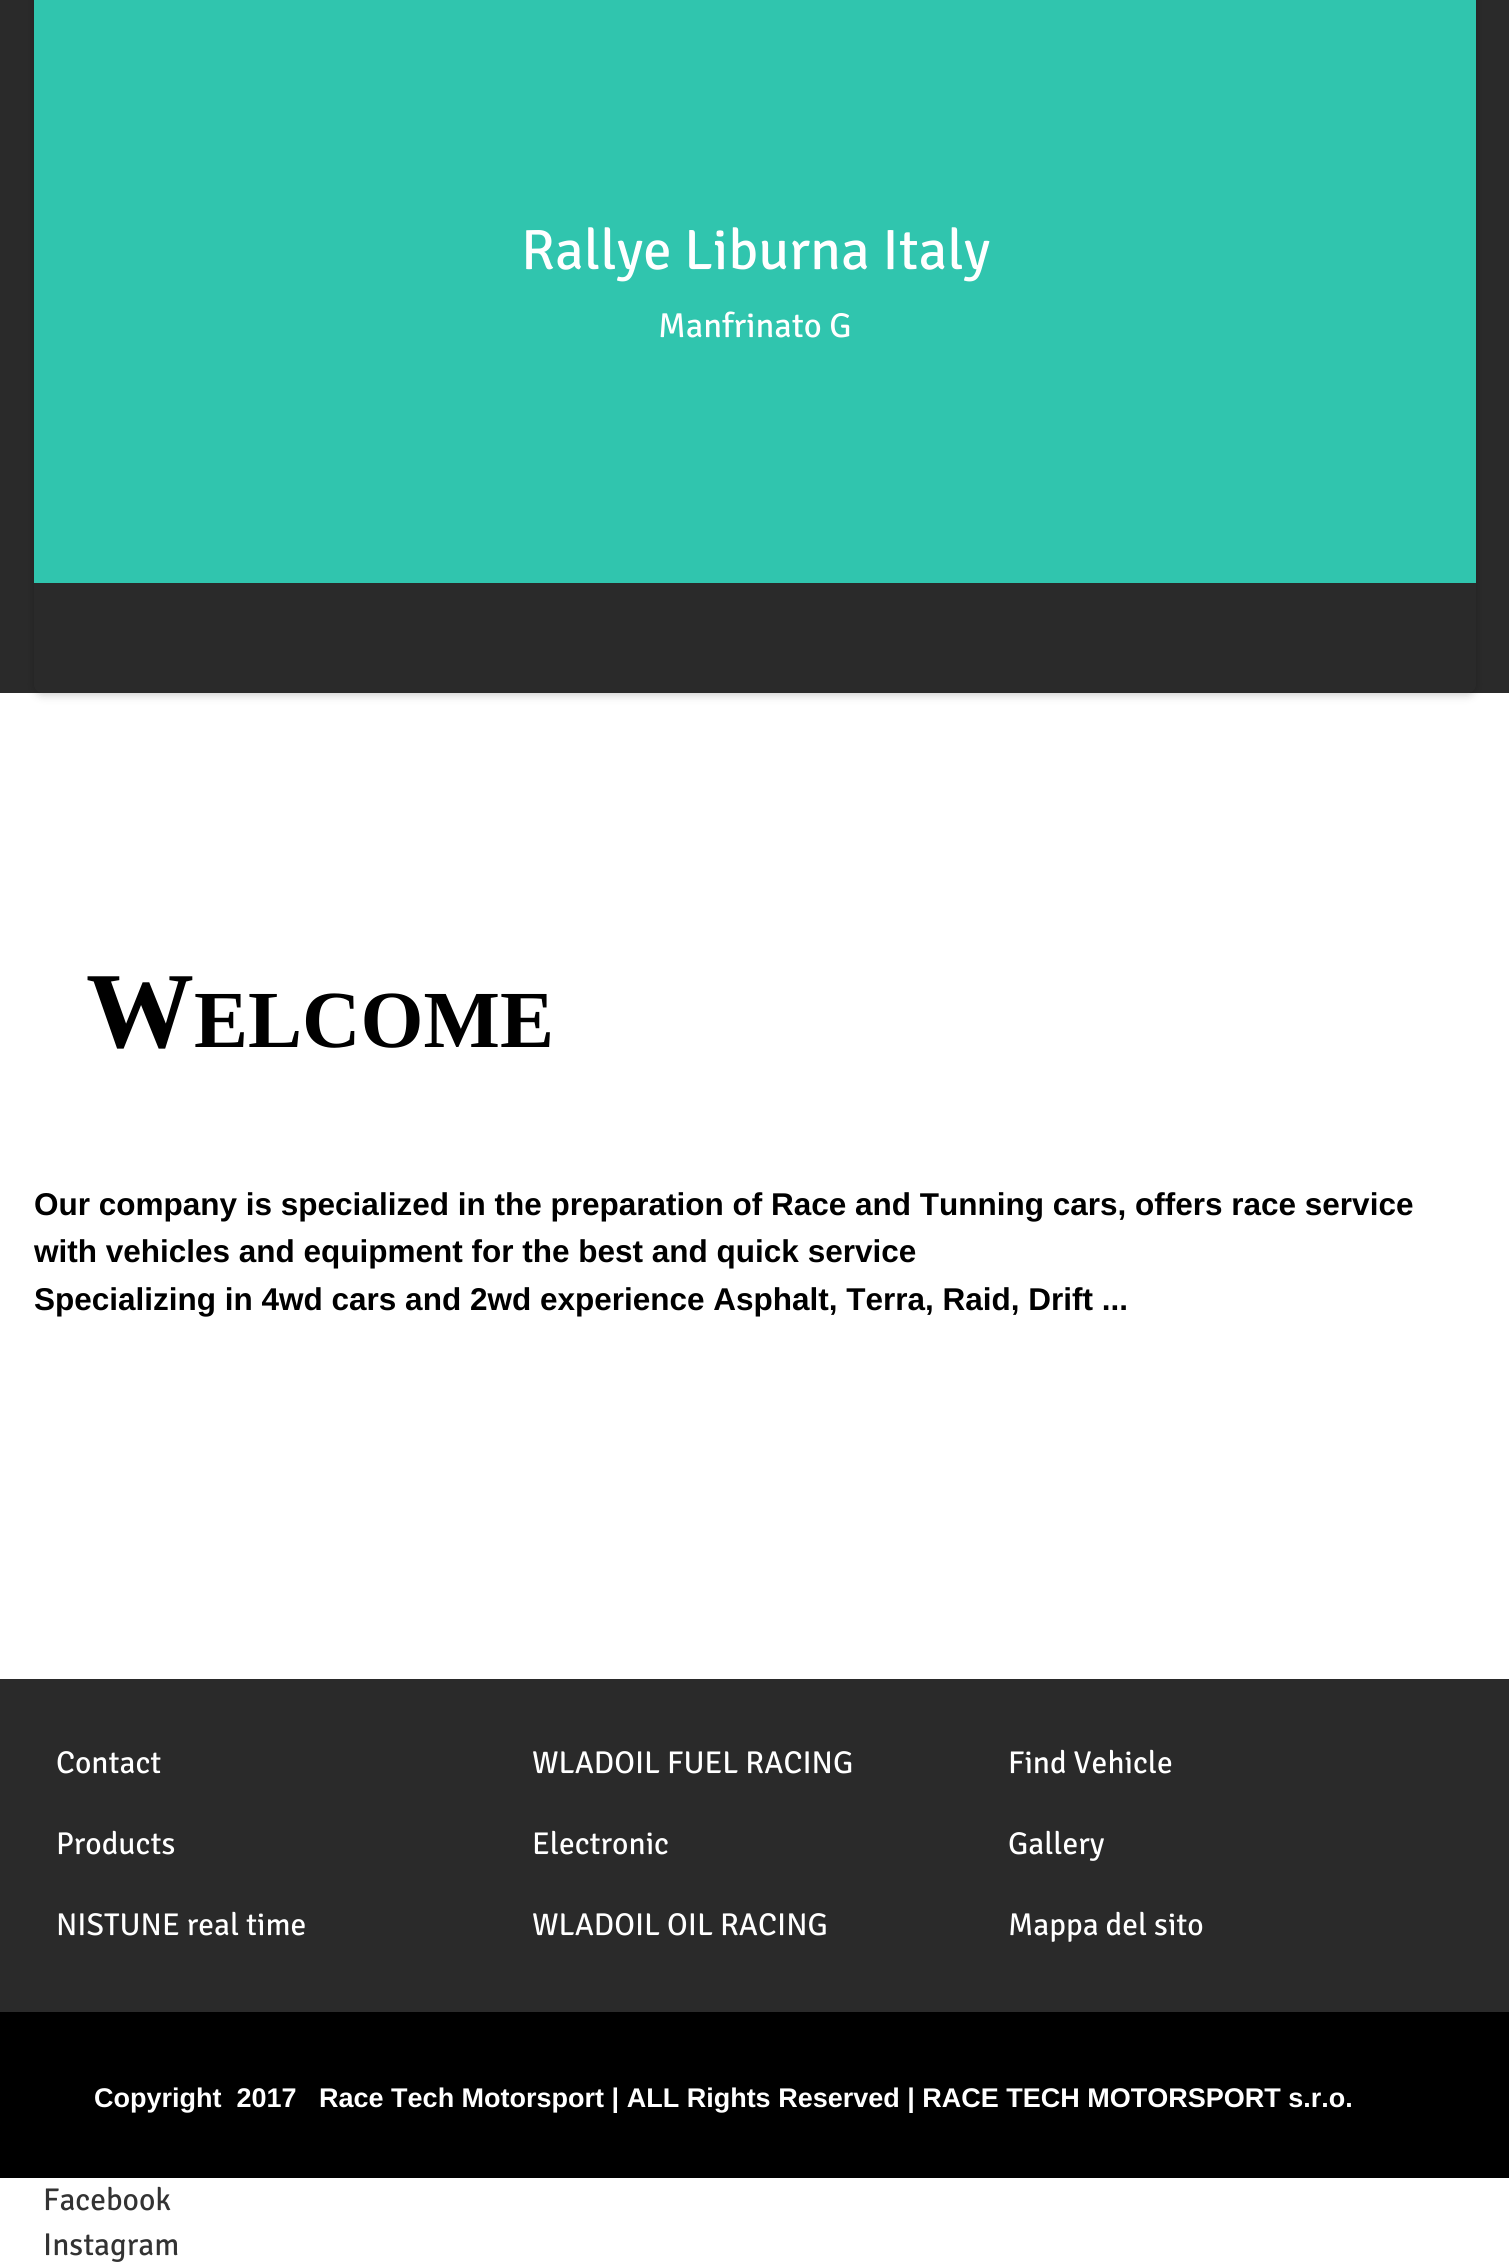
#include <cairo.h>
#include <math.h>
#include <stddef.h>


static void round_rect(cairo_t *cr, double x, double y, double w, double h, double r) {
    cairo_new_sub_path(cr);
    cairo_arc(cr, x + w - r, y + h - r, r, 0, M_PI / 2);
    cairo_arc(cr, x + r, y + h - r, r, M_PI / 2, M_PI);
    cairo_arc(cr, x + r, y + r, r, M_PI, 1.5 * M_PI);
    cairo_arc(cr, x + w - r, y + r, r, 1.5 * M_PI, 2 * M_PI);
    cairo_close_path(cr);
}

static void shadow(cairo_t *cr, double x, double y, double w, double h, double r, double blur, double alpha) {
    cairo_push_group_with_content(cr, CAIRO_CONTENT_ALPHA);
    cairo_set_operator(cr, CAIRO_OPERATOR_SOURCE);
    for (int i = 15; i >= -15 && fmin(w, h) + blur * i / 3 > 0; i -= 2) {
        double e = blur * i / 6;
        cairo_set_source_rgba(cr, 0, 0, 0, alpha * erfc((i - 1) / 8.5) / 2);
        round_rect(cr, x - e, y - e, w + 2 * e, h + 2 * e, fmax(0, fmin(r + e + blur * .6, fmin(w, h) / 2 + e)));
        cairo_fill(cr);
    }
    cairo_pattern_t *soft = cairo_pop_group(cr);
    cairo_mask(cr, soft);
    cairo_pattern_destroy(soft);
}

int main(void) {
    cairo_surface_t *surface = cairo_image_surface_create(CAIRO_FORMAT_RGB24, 1509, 2266);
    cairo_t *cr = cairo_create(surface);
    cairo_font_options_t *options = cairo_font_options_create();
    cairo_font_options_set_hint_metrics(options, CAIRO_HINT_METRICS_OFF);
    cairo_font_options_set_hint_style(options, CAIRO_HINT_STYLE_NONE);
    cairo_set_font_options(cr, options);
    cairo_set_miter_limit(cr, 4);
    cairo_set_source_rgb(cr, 1, 1, 1);
    cairo_paint(cr);
    cairo_set_source_rgb(cr, 0.165, 0.165, 0.165);
    cairo_rectangle(cr, 0, 0, 1509, 693);
    cairo_fill(cr);
    cairo_save(cr);
    cairo_set_fill_rule(cr, CAIRO_FILL_RULE_EVEN_ODD);
    cairo_new_path(cr);
    cairo_move_to(cr, 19, 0);
    cairo_line_to(cr, 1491, 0);
    cairo_line_to(cr, 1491, 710);
    cairo_line_to(cr, 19, 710);
    cairo_close_path(cr);
    cairo_move_to(cr, 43, -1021);
    cairo_line_to(cr, 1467, -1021);
    cairo_curve_to(cr, 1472, -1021, 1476, -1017, 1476, -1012);
    cairo_line_to(cr, 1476, 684);
    cairo_curve_to(cr, 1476, 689, 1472, 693, 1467, 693);
    cairo_line_to(cr, 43, 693);
    cairo_curve_to(cr, 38, 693, 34, 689, 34, 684);
    cairo_line_to(cr, 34, -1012);
    cairo_curve_to(cr, 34, -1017, 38, -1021, 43, -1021);
    cairo_close_path(cr);
    cairo_clip(cr);
    cairo_set_source_rgb(cr, 0, 0, 0);
    shadow(cr, 34, -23, 1442, 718, 9, 4.5, 0.2);
    cairo_restore(cr);
    cairo_set_source_rgb(cr, 0.188, 0.773, 0.682);
    cairo_rectangle(cr, 34, 0, 1442, 583);
    cairo_fill(cr);
    cairo_select_font_face(cr, "Signika Negative Light", CAIRO_FONT_SLANT_NORMAL, CAIRO_FONT_WEIGHT_NORMAL);
    cairo_set_font_size(cr, 56.75);
    cairo_set_source_rgb(cr, 1, 1, 1);
    cairo_move_to(cr, 521, 269);
    cairo_show_text(cr, "Rallye Liburna Italy");
    cairo_set_font_size(cr, 34.5);
    cairo_move_to(cr, 658, 337);
    cairo_show_text(cr, "Manfrinato G");
    cairo_select_font_face(cr, "Liberation Serif", CAIRO_FONT_SLANT_NORMAL, CAIRO_FONT_WEIGHT_BOLD);
    cairo_set_font_size(cr, 108);
    cairo_set_source_rgb(cr, 0, 0, 0);
    cairo_move_to(cr, 86, 1047);
    cairo_show_text(cr, "W");
    cairo_set_font_size(cr, 81);
    cairo_move_to(cr, 194, 1047);
    cairo_show_text(cr, "ELCOME");
    cairo_select_font_face(cr, "Liberation Sans", CAIRO_FONT_SLANT_NORMAL, CAIRO_FONT_WEIGHT_BOLD);
    cairo_set_font_size(cr, 31.5);
    cairo_move_to(cr, 34, 1215);
    cairo_show_text(cr, "Our company is specialized in the preparation of Race and Tunning cars, offers race service");
    cairo_move_to(cr, 34, 1262);
    cairo_show_text(cr, "with vehicles and equipment for the best and quick service");
    cairo_move_to(cr, 34, 1310);
    cairo_show_text(cr, "Specializing in 4wd cars and 2wd experience Asphalt, Terra, Raid, Drift ...");
    cairo_set_source_rgb(cr, 0.165, 0.165, 0.165);
    cairo_rectangle(cr, 0, 1679, 1509, 333);
    cairo_fill(cr);
    cairo_select_font_face(cr, "Signika Negative Light", CAIRO_FONT_SLANT_NORMAL, CAIRO_FONT_WEIGHT_NORMAL);
    cairo_set_source_rgb(cr, 1, 1, 1);
    cairo_move_to(cr, 56, 1773);
    cairo_show_text(cr, "Contact");
    cairo_move_to(cr, 532, 1773);
    cairo_show_text(cr, "WLADOIL FUEL RACING");
    cairo_move_to(cr, 1008, 1773);
    cairo_show_text(cr, "Find Vehicle");
    cairo_move_to(cr, 56, 1854);
    cairo_show_text(cr, "Products");
    cairo_move_to(cr, 532, 1854);
    cairo_show_text(cr, "Electronic");
    cairo_move_to(cr, 1008, 1854);
    cairo_show_text(cr, "Gallery");
    cairo_move_to(cr, 56, 1935);
    cairo_show_text(cr, "NISTUNE real time");
    cairo_move_to(cr, 532, 1935);
    cairo_show_text(cr, "WLADOIL OIL RACING");
    cairo_move_to(cr, 1008, 1935);
    cairo_show_text(cr, "Mappa del sito");
    cairo_set_source_rgb(cr, 0, 0, 0);
    cairo_rectangle(cr, 0, 2012, 1509, 166);
    cairo_fill(cr);
    cairo_select_font_face(cr, "Liberation Sans", CAIRO_FONT_SLANT_NORMAL, CAIRO_FONT_WEIGHT_BOLD);
    cairo_set_font_size(cr, 27);
    cairo_set_source_rgb(cr, 1, 1, 1);
    cairo_move_to(cr, 94, 2107);
    cairo_show_text(cr, "Copyright  2017   Race Tech Motorsport | ALL Rights Reserved | RACE TECH MOTORSPORT s.r.o.");
    cairo_select_font_face(cr, "Signika Negative Light", CAIRO_FONT_SLANT_NORMAL, CAIRO_FONT_WEIGHT_NORMAL);
    cairo_set_font_size(cr, 31.5);
    cairo_set_source_rgb(cr, 0.2, 0.2, 0.2);
    cairo_move_to(cr, 43, 2210);
    cairo_show_text(cr, "Facebook");
    cairo_move_to(cr, 43, 2255);
    cairo_show_text(cr, "Instagram");
    cairo_surface_write_to_png(surface, "page.png");
    cairo_font_options_destroy(options);
    cairo_destroy(cr);
    cairo_surface_destroy(surface);
    return 0;
}
